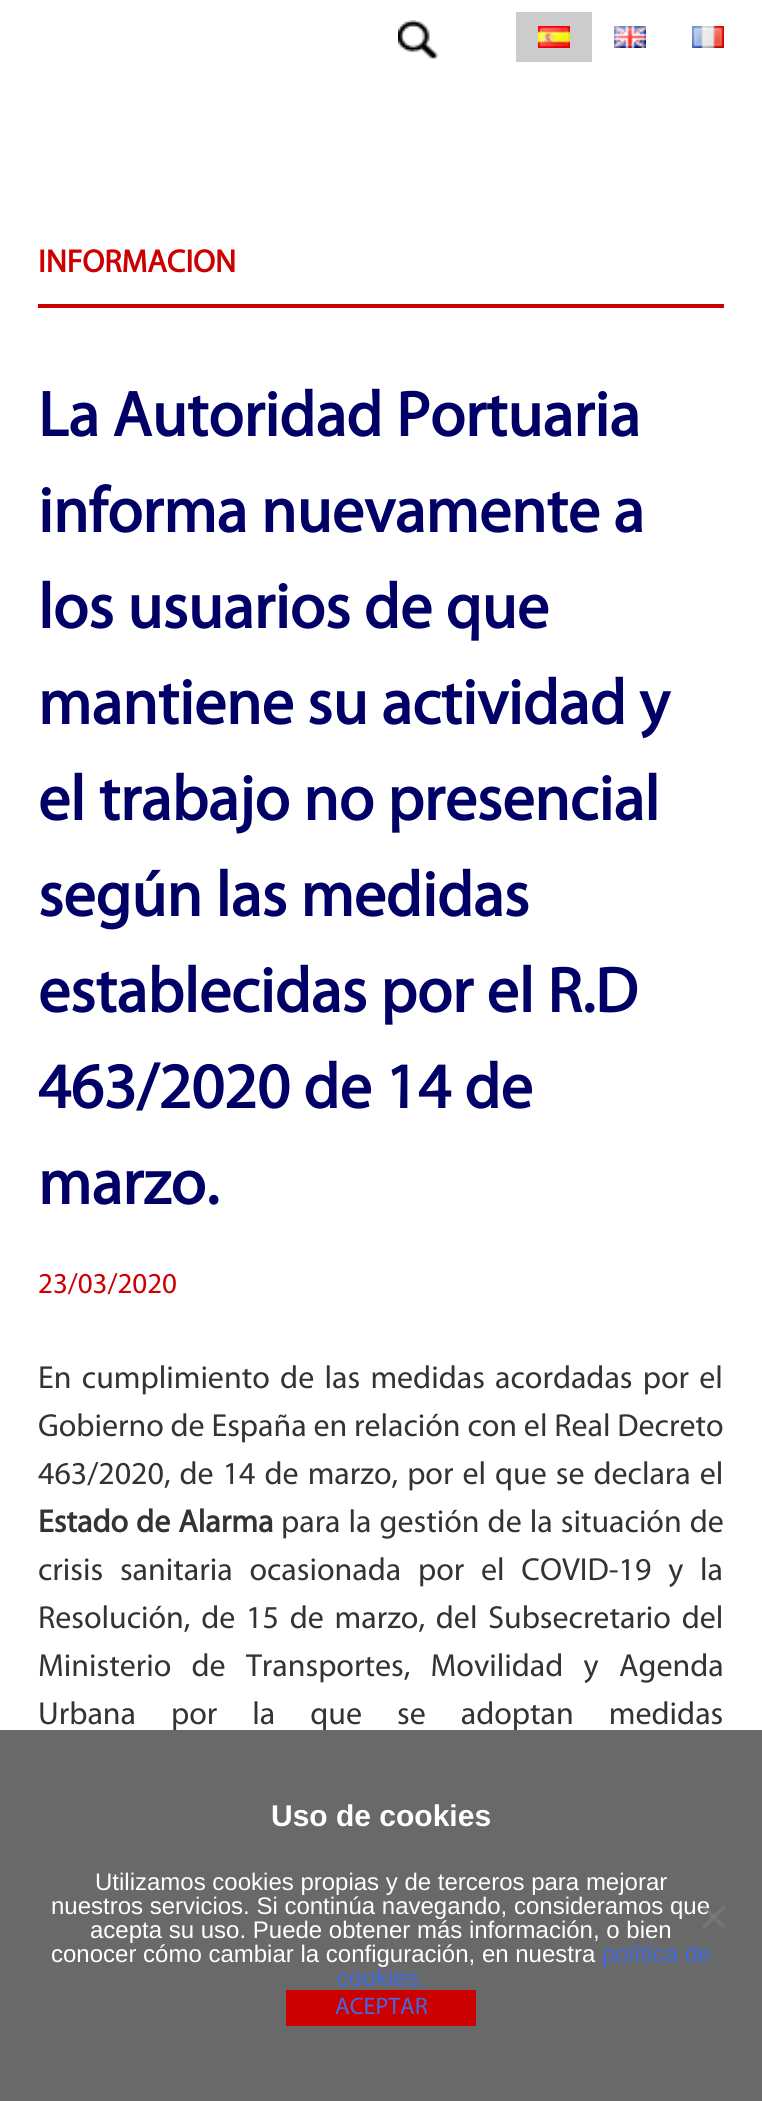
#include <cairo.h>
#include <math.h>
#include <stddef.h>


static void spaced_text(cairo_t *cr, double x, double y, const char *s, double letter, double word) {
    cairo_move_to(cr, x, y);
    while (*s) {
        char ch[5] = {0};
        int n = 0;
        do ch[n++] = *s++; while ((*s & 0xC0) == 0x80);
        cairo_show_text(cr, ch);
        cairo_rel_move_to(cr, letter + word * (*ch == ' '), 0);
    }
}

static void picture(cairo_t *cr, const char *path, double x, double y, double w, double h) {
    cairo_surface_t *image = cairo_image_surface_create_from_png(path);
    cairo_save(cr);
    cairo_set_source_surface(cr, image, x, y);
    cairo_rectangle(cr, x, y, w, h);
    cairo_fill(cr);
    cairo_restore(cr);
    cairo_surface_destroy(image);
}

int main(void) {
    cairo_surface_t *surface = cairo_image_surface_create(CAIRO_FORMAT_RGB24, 762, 2101);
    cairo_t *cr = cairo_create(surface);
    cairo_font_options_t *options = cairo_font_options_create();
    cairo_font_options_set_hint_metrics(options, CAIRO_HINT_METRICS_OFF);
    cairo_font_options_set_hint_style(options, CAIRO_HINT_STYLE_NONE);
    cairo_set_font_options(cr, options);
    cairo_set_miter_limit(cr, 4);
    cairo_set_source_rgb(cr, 1, 1, 1);
    cairo_paint(cr);
    picture(cr, "img1.png", 398, 20, 40, 39);
    cairo_set_source_rgb(cr, 0.8, 0.8, 0.8);
    cairo_rectangle(cr, 516, 12, 76, 50);
    cairo_fill(cr);
    picture(cr, "img2.png", 538, 26, 32, 22);
    picture(cr, "img3.png", 614, 26, 32, 22);
    picture(cr, "img4.png", 692, 26, 32, 22);
    cairo_set_source_rgb(cr, 0.8, 0, 0);
    cairo_rectangle(cr, 38, 304, 686, 4);
    cairo_fill(cr);
    cairo_select_font_face(cr, "Myriad", CAIRO_FONT_SLANT_NORMAL, CAIRO_FONT_WEIGHT_BOLD);
    cairo_set_font_size(cr, 32);
    cairo_move_to(cr, 38, 272);
    cairo_show_text(cr, "INFORMACION");
    cairo_set_font_size(cr, 64);
    cairo_set_source_rgb(cr, 0, 0, 0.4);
    cairo_move_to(cr, 38, 436);
    cairo_show_text(cr, "La Autoridad Portuaria");
    cairo_move_to(cr, 38, 532);
    cairo_show_text(cr, "informa nuevamente a");
    cairo_move_to(cr, 38, 628);
    cairo_show_text(cr, "los usuarios de que");
    cairo_move_to(cr, 38, 724);
    cairo_show_text(cr, "mantiene su actividad y");
    cairo_move_to(cr, 38, 820);
    cairo_show_text(cr, "el trabajo no presencial");
    cairo_move_to(cr, 38, 916);
    cairo_show_text(cr, "según las medidas");
    cairo_move_to(cr, 38, 1012);
    cairo_show_text(cr, "establecidas por el R.D");
    cairo_move_to(cr, 38, 1108);
    cairo_show_text(cr, "463/2020 de 14 de");
    cairo_move_to(cr, 38, 1204);
    cairo_show_text(cr, "marzo.");
    cairo_select_font_face(cr, "Myriad", CAIRO_FONT_SLANT_NORMAL, CAIRO_FONT_WEIGHT_NORMAL);
    cairo_set_font_size(cr, 29);
    cairo_set_source_rgb(cr, 0.8, 0, 0);
    cairo_move_to(cr, 38, 1293);
    cairo_show_text(cr, "23/03/2020");
    cairo_set_font_size(cr, 32);
    cairo_set_source_rgb(cr, 0.2, 0.2, 0.2);
    spaced_text(cr, 38, 1388, "En cumplimiento de las medidas acordadas por el", 0, 3.5);
    cairo_move_to(cr, 38, 1436);
    cairo_show_text(cr, "Gobierno de España en relación con el Real Decreto");
    spaced_text(cr, 38, 1484, "463/2020, de 14 de marzo, por el que se declara el", 0, 2.25);
    cairo_select_font_face(cr, "Myriad", CAIRO_FONT_SLANT_NORMAL, CAIRO_FONT_WEIGHT_BOLD);
    spaced_text(cr, 38, 1532, "Estado de Alarma", 0, 1.25);
    cairo_select_font_face(cr, "Myriad", CAIRO_FONT_SLANT_NORMAL, CAIRO_FONT_WEIGHT_NORMAL);
    spaced_text(cr, 281, 1532, "para la gestión de la situación de", 0, 1.25);
    spaced_text(cr, 38, 1580, "crisis sanitaria ocasionada por el COVID-19 y la", 0, 10);
    spaced_text(cr, 38, 1628, "Resolución, de 15 de marzo, del Subsecretario del", 0, 4);
    spaced_text(cr, 38, 1676, "Ministerio de Transportes, Movilidad y Agenda", 0, 13.5);
    spaced_text(cr, 38, 1724, "Urbana por la que se adoptan medidas", 0, 28.25);
    cairo_set_source_rgb(cr, 0.412, 0.412, 0.412);
    cairo_rectangle(cr, 0, 1730, 762, 371);
    cairo_fill(cr);
    cairo_select_font_face(cr, "Liberation Sans", CAIRO_FONT_SLANT_NORMAL, CAIRO_FONT_WEIGHT_BOLD);
    cairo_set_font_size(cr, 30);
    cairo_set_source_rgb(cr, 1, 1, 1);
    cairo_move_to(cr, 271, 1826);
    cairo_show_text(cr, "Uso de cookies");
    cairo_select_font_face(cr, "Liberation Sans", CAIRO_FONT_SLANT_NORMAL, CAIRO_FONT_WEIGHT_NORMAL);
    cairo_set_font_size(cr, 24);
    cairo_move_to(cr, 95, 1890);
    cairo_show_text(cr, "Utilizamos cookies propias y de terceros para mejorar");
    cairo_move_to(cr, 51, 1914);
    cairo_show_text(cr, "nuestros servicios. Si continúa navegando, consideramos que");
    cairo_set_source_rgb(cr, 0.459, 0.459, 0.459);
    cairo_new_path(cr);
    cairo_move_to(cr, 723, 1905);
    cairo_line_to(cr, 726, 1908);
    cairo_line_to(cr, 705, 1929);
    cairo_line_to(cr, 702, 1926.5);
    cairo_close_path(cr);
    cairo_fill(cr);
    cairo_set_source_rgba(cr, 0.502, 0.502, 0.502, 0.5);
    cairo_new_path(cr);
    cairo_move_to(cr, 702, 1908);
    cairo_line_to(cr, 705, 1905);
    cairo_line_to(cr, 726, 1926.5);
    cairo_line_to(cr, 723, 1929);
    cairo_close_path(cr);
    cairo_fill(cr);
    cairo_set_source_rgb(cr, 1, 1, 1);
    cairo_move_to(cr, 90, 1938);
    cairo_show_text(cr, "acepta su uso. Puede obtener más información, o bien");
    cairo_move_to(cr, 51, 1962);
    cairo_show_text(cr, "conocer cómo cambiar la configuración, en nuestra");
    cairo_set_source_rgb(cr, 0.255, 0.412, 0.882);
    cairo_move_to(cr, 602, 1962);
    cairo_show_text(cr, "política de");
    cairo_move_to(cr, 337, 1986);
    cairo_show_text(cr, "cookies.");
    cairo_set_source_rgb(cr, 0.8, 0, 0);
    cairo_rectangle(cr, 286, 1990, 190, 36);
    cairo_fill(cr);
    cairo_select_font_face(cr, "Myriad", CAIRO_FONT_SLANT_NORMAL, CAIRO_FONT_WEIGHT_NORMAL);
    cairo_set_source_rgb(cr, 0.255, 0.412, 0.882);
    cairo_move_to(cr, 335, 2014);
    cairo_show_text(cr, "ACEPTAR");
    cairo_surface_write_to_png(surface, "page.png");
    cairo_font_options_destroy(options);
    cairo_destroy(cr);
    cairo_surface_destroy(surface);
    return 0;
}
